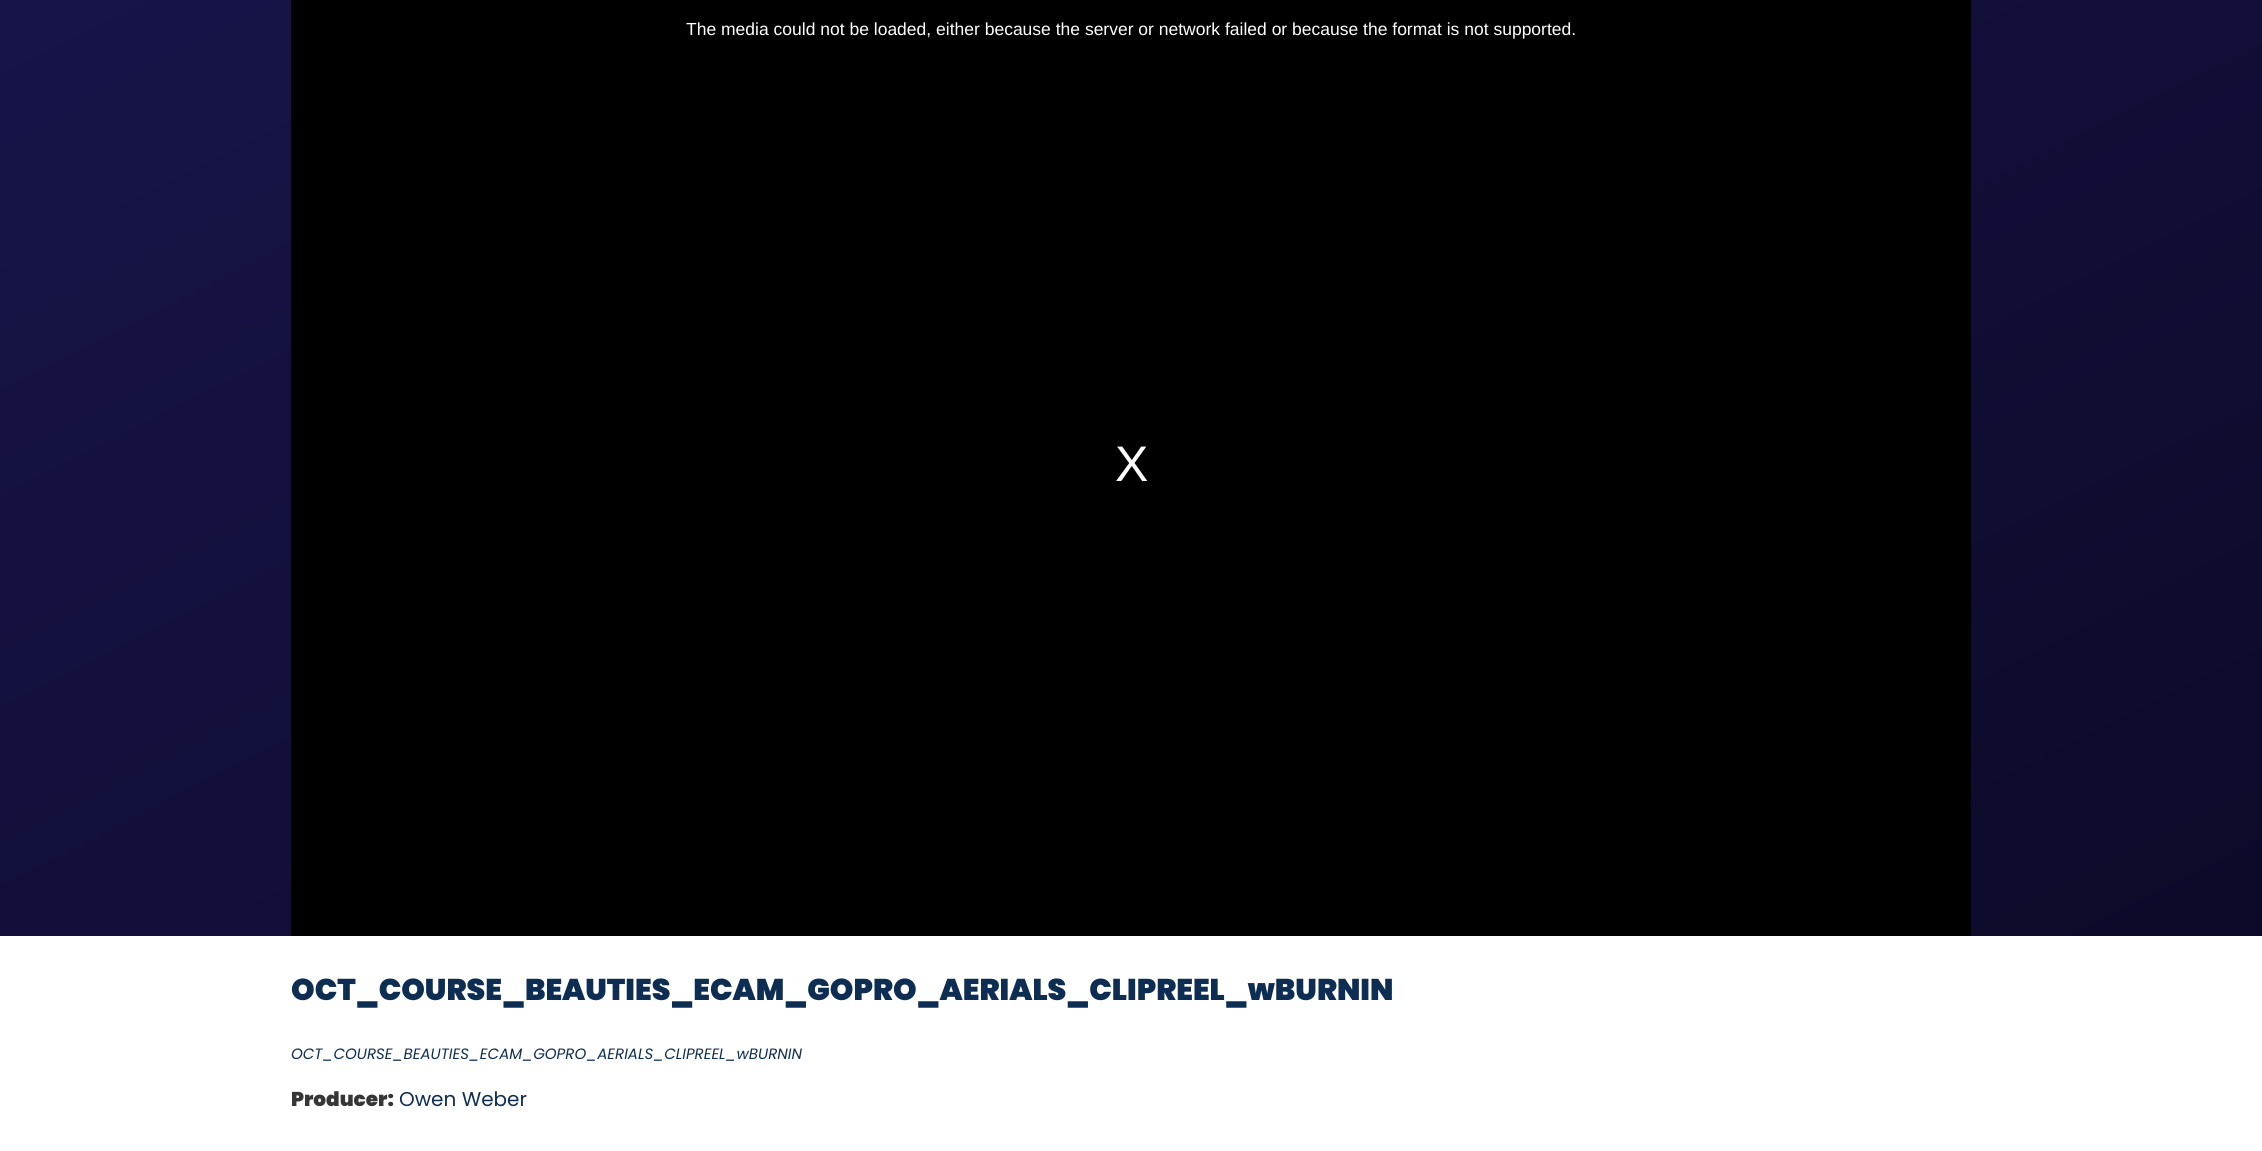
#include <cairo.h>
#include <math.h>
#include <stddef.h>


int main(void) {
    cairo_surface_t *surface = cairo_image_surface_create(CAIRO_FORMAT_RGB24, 2262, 1151);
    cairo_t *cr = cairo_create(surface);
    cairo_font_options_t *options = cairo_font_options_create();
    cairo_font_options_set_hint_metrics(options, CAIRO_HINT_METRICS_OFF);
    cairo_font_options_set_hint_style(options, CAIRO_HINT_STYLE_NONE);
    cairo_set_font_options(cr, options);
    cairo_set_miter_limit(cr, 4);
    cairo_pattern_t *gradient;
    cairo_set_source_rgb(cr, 1, 1, 1);
    cairo_paint(cr);
    gradient = cairo_pattern_create_linear(707, -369, 1556, 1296);
    cairo_pattern_add_color_stop_rgba(gradient, 0, 0.09, 0.078, 0.29, 1);
    cairo_pattern_add_color_stop_rgba(gradient, 1, 0.047, 0.039, 0.157, 1);
    cairo_set_source(cr, gradient);
    cairo_pattern_destroy(gradient);
    cairo_rectangle(cr, 0, 0, 2262, 936);
    cairo_fill(cr);
    cairo_set_source_rgb(cr, 0, 0, 0);
    cairo_rectangle(cr, 291, 0, 1680, 936);
    cairo_fill(cr);
    cairo_select_font_face(cr, "Liberation Sans", CAIRO_FONT_SLANT_NORMAL, CAIRO_FONT_WEIGHT_NORMAL);
    cairo_set_font_size(cr, 17.5);
    cairo_set_source_rgb(cr, 1, 1, 1);
    cairo_move_to(cr, 686, 35);
    cairo_show_text(cr, "The media could not be loaded, either because the server or network failed or because the format is not supported.");
    cairo_set_font_size(cr, 50);
    cairo_move_to(cr, 1115, 481);
    cairo_show_text(cr, "X");
    cairo_select_font_face(cr, "Poppins Black", CAIRO_FONT_SLANT_NORMAL, CAIRO_FONT_WEIGHT_NORMAL);
    cairo_set_font_size(cr, 30);
    cairo_set_source_rgb(cr, 0.055, 0.176, 0.322);
    cairo_move_to(cr, 291, 1000);
    cairo_show_text(cr, "OCT_COURSE_BEAUTIES_ECAM_GOPRO_AERIALS_CLIPREEL_wBURNIN");
    cairo_select_font_face(cr, "Poppins", CAIRO_FONT_SLANT_ITALIC, CAIRO_FONT_WEIGHT_NORMAL);
    cairo_set_font_size(cr, 15);
    cairo_move_to(cr, 291, 1059);
    cairo_show_text(cr, "OCT_COURSE_BEAUTIES_ECAM_GOPRO_AERIALS_CLIPREEL_wBURNIN");
    cairo_select_font_face(cr, "Poppins Black", CAIRO_FONT_SLANT_NORMAL, CAIRO_FONT_WEIGHT_NORMAL);
    cairo_set_font_size(cr, 20);
    cairo_set_source_rgb(cr, 0.212, 0.212, 0.212);
    cairo_move_to(cr, 291, 1106);
    cairo_show_text(cr, "Producer:");
    cairo_select_font_face(cr, "Poppins", CAIRO_FONT_SLANT_NORMAL, CAIRO_FONT_WEIGHT_NORMAL);
    cairo_set_source_rgb(cr, 0.055, 0.176, 0.322);
    cairo_move_to(cr, 399, 1106);
    cairo_show_text(cr, "Owen Weber");
    cairo_surface_write_to_png(surface, "page.png");
    cairo_font_options_destroy(options);
    cairo_destroy(cr);
    cairo_surface_destroy(surface);
    return 0;
}
